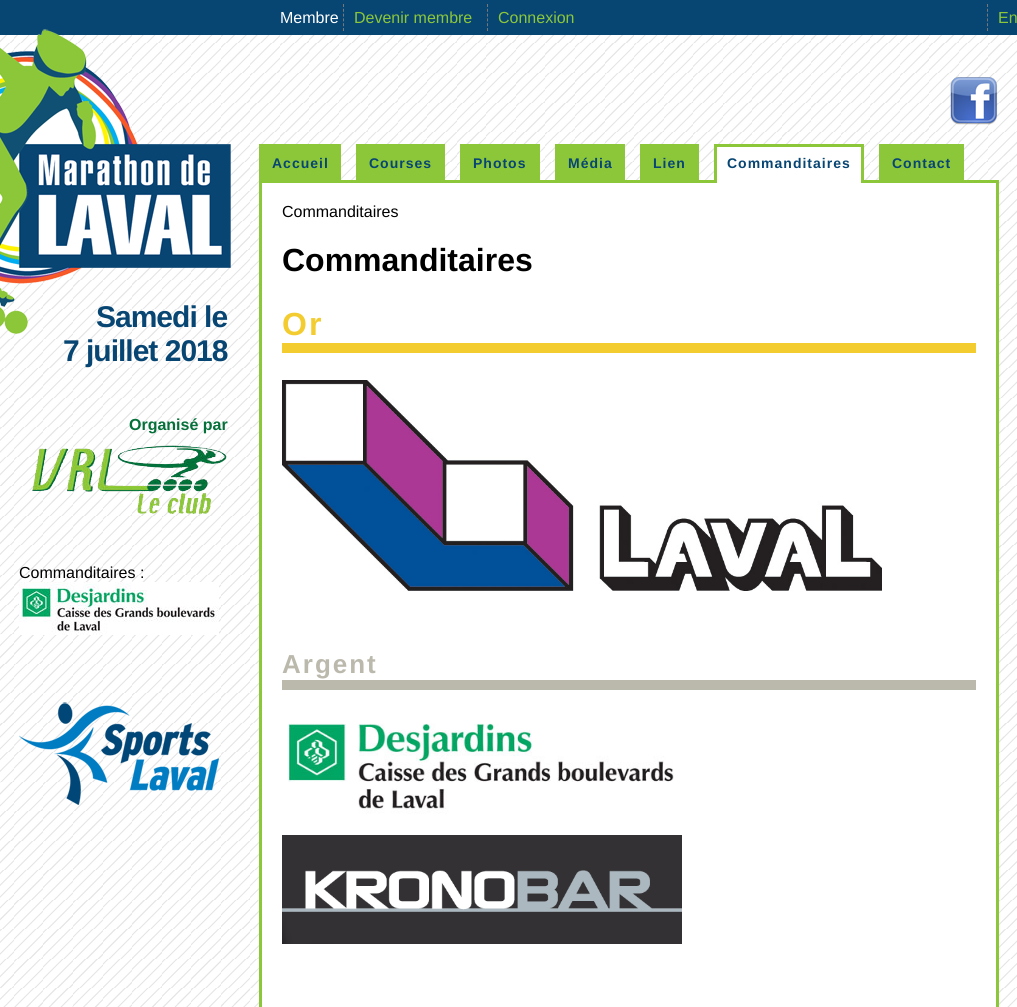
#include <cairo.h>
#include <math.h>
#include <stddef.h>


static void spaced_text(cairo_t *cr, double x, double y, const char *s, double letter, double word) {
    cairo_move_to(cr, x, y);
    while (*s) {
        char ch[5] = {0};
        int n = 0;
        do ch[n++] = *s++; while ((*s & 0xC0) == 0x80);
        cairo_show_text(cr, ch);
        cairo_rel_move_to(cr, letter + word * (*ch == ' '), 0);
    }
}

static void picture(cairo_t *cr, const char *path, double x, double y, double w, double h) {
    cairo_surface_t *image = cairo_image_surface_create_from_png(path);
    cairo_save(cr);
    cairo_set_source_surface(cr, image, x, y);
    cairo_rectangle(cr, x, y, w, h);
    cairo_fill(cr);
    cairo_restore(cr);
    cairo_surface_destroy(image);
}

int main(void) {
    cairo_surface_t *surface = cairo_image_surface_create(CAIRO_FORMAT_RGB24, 1017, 1007);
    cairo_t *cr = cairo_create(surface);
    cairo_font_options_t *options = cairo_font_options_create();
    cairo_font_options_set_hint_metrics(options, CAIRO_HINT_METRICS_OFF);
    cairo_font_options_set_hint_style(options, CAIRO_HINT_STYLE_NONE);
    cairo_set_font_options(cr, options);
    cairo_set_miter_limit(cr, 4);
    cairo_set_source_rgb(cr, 1, 1, 1);
    cairo_paint(cr);
    picture(cr, "img1.png", 0, 35, 1017, 972);
    cairo_set_source_rgb(cr, 0.031, 0.271, 0.451);
    cairo_rectangle(cr, 0, 0, 1017, 35);
    cairo_fill(cr);
    cairo_select_font_face(cr, "Liberation Sans", CAIRO_FONT_SLANT_NORMAL, CAIRO_FONT_WEIGHT_NORMAL);
    cairo_set_font_size(cr, 16);
    cairo_set_source_rgb(cr, 1, 1, 1);
    cairo_move_to(cr, 280, 23);
    cairo_show_text(cr, "Membre");
    cairo_set_source_rgb(cr, 0.549, 0.78, 0.224);
    cairo_move_to(cr, 354, 23);
    cairo_show_text(cr, "Devenir membre");
    cairo_new_path(cr);
    cairo_move_to(cr, 343.5, 4);
    cairo_line_to(cr, 343.5, 31);
    cairo_set_source_rgb(cr, 0.467, 0.467, 0.467);
    cairo_set_line_width(cr, 1);
    cairo_set_dash(cr, (double[]){3, 1.8}, 2, 0);
    cairo_stroke(cr);
    cairo_set_source_rgb(cr, 0.549, 0.78, 0.224);
    cairo_move_to(cr, 498, 23);
    cairo_show_text(cr, "Connexion");
    cairo_new_path(cr);
    cairo_move_to(cr, 487.5, 4);
    cairo_line_to(cr, 487.5, 31);
    cairo_set_source_rgb(cr, 0.467, 0.467, 0.467);
    cairo_stroke(cr);
    cairo_set_source_rgb(cr, 0.549, 0.78, 0.224);
    cairo_move_to(cr, 998, 23);
    cairo_show_text(cr, "En");
    cairo_new_path(cr);
    cairo_move_to(cr, 987.5, 4);
    cairo_line_to(cr, 987.5, 31);
    cairo_set_source_rgb(cr, 0.467, 0.467, 0.467);
    cairo_stroke(cr);
    cairo_select_font_face(cr, "Liberation Sans", CAIRO_FONT_SLANT_NORMAL, CAIRO_FONT_WEIGHT_BOLD);
    cairo_set_font_size(cr, 30);
    cairo_set_source_rgb(cr, 0.031, 0.271, 0.451);
    spaced_text(cr, 96, 327, "Samedi le", -1, 0);
    picture(cr, "img2.png", 0, 29, 231, 305);
    picture(cr, "img3.png", 950, 77, 48, 48);
    spaced_text(cr, 63, 361, "7 juillet 2018", -1, 0);
    cairo_set_font_size(cr, 16);
    cairo_set_source_rgb(cr, 0.02, 0.439, 0.227);
    cairo_move_to(cr, 129, 430);
    cairo_show_text(cr, "Organisé par");
    picture(cr, "img4.png", 32, 445, 195, 71);
    cairo_select_font_face(cr, "Liberation Sans", CAIRO_FONT_SLANT_NORMAL, CAIRO_FONT_WEIGHT_NORMAL);
    cairo_set_source_rgb(cr, 0, 0, 0);
    cairo_move_to(cr, 19, 578);
    cairo_show_text(cr, "Commanditaires :");
    picture(cr, "img5.png", 19, 582, 200, 53);
    picture(cr, "img6.png", 19, 702, 200, 103);
    cairo_set_source_rgb(cr, 0.549, 0.78, 0.224);
    cairo_rectangle(cr, 259, 144, 82, 36);
    cairo_fill(cr);
    cairo_select_font_face(cr, "Liberation Sans", CAIRO_FONT_SLANT_NORMAL, CAIRO_FONT_WEIGHT_BOLD);
    cairo_set_font_size(cr, 14);
    cairo_set_source_rgb(cr, 0.031, 0.271, 0.451);
    spaced_text(cr, 272, 168, "Accueil", 1, 0);
    cairo_set_source_rgb(cr, 0.549, 0.78, 0.224);
    cairo_rectangle(cr, 356, 144, 89, 36);
    cairo_fill(cr);
    cairo_set_source_rgb(cr, 0.031, 0.271, 0.451);
    spaced_text(cr, 369, 168, "Courses", 1, 0);
    cairo_set_source_rgb(cr, 0.549, 0.78, 0.224);
    cairo_rectangle(cr, 460, 144, 80, 36);
    cairo_fill(cr);
    cairo_set_source_rgb(cr, 0.031, 0.271, 0.451);
    spaced_text(cr, 473, 168, "Photos", 1, 0);
    cairo_set_source_rgb(cr, 0.549, 0.78, 0.224);
    cairo_rectangle(cr, 555, 144, 70, 36);
    cairo_fill(cr);
    cairo_set_source_rgb(cr, 0.031, 0.271, 0.451);
    spaced_text(cr, 568, 168, "Média", 1, 0);
    cairo_set_source_rgb(cr, 0.549, 0.78, 0.224);
    cairo_rectangle(cr, 640, 144, 59, 36);
    cairo_fill(cr);
    cairo_set_source_rgb(cr, 0.031, 0.271, 0.451);
    spaced_text(cr, 653, 168, "Lien", 1, 0);
    cairo_set_source_rgb(cr, 1, 1, 1);
    cairo_rectangle(cr, 260.5, 181.5, 737, 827);
    cairo_fill_preserve(cr);
    cairo_set_source_rgb(cr, 0.549, 0.78, 0.224);
    cairo_set_line_width(cr, 3);
    cairo_set_dash(cr, NULL, 0, 0);
    cairo_stroke(cr);
    cairo_set_source_rgb(cr, 1, 1, 1);
    cairo_rectangle(cr, 717, 147, 144, 36);
    cairo_fill(cr);
    cairo_set_source_rgb(cr, 0.549, 0.78, 0.224);
    cairo_rectangle(cr, 714, 144, 150, 3);
    cairo_fill(cr);
    cairo_rectangle(cr, 861, 144, 3, 39);
    cairo_fill(cr);
    cairo_rectangle(cr, 714, 144, 3, 39);
    cairo_fill(cr);
    cairo_set_source_rgb(cr, 0.031, 0.271, 0.451);
    spaced_text(cr, 727, 168, "Commanditaires", 1, 0);
    cairo_set_source_rgb(cr, 0.549, 0.78, 0.224);
    cairo_rectangle(cr, 879, 144, 85, 36);
    cairo_fill(cr);
    cairo_set_source_rgb(cr, 0.031, 0.271, 0.451);
    spaced_text(cr, 892, 168, "Contact", 1, 0);
    cairo_select_font_face(cr, "Liberation Sans", CAIRO_FONT_SLANT_NORMAL, CAIRO_FONT_WEIGHT_NORMAL);
    cairo_set_font_size(cr, 16);
    cairo_set_source_rgb(cr, 0, 0, 0);
    cairo_move_to(cr, 282, 217);
    cairo_show_text(cr, "Commanditaires");
    cairo_select_font_face(cr, "Liberation Sans", CAIRO_FONT_SLANT_NORMAL, CAIRO_FONT_WEIGHT_BOLD);
    cairo_set_font_size(cr, 32);
    cairo_move_to(cr, 282, 271);
    cairo_show_text(cr, "Commanditaires");
    cairo_set_source_rgb(cr, 0.953, 0.8, 0.184);
    cairo_rectangle(cr, 282, 343, 694, 10);
    cairo_fill(cr);
    spaced_text(cr, 282, 335, "Or", 2, 0);
    picture(cr, "img7.png", 282, 380, 600, 211);
    cairo_set_source_rgb(cr, 0.733, 0.722, 0.675);
    cairo_rectangle(cr, 282, 680, 694, 10);
    cairo_fill(cr);
    cairo_set_font_size(cr, 26);
    spaced_text(cr, 282, 673, "Argent", 2, 0);
    picture(cr, "img8.png", 288, 723, 386, 91);
    picture(cr, "img9.png", 282, 835, 400, 109);
    cairo_surface_write_to_png(surface, "page.png");
    cairo_font_options_destroy(options);
    cairo_destroy(cr);
    cairo_surface_destroy(surface);
    return 0;
}
